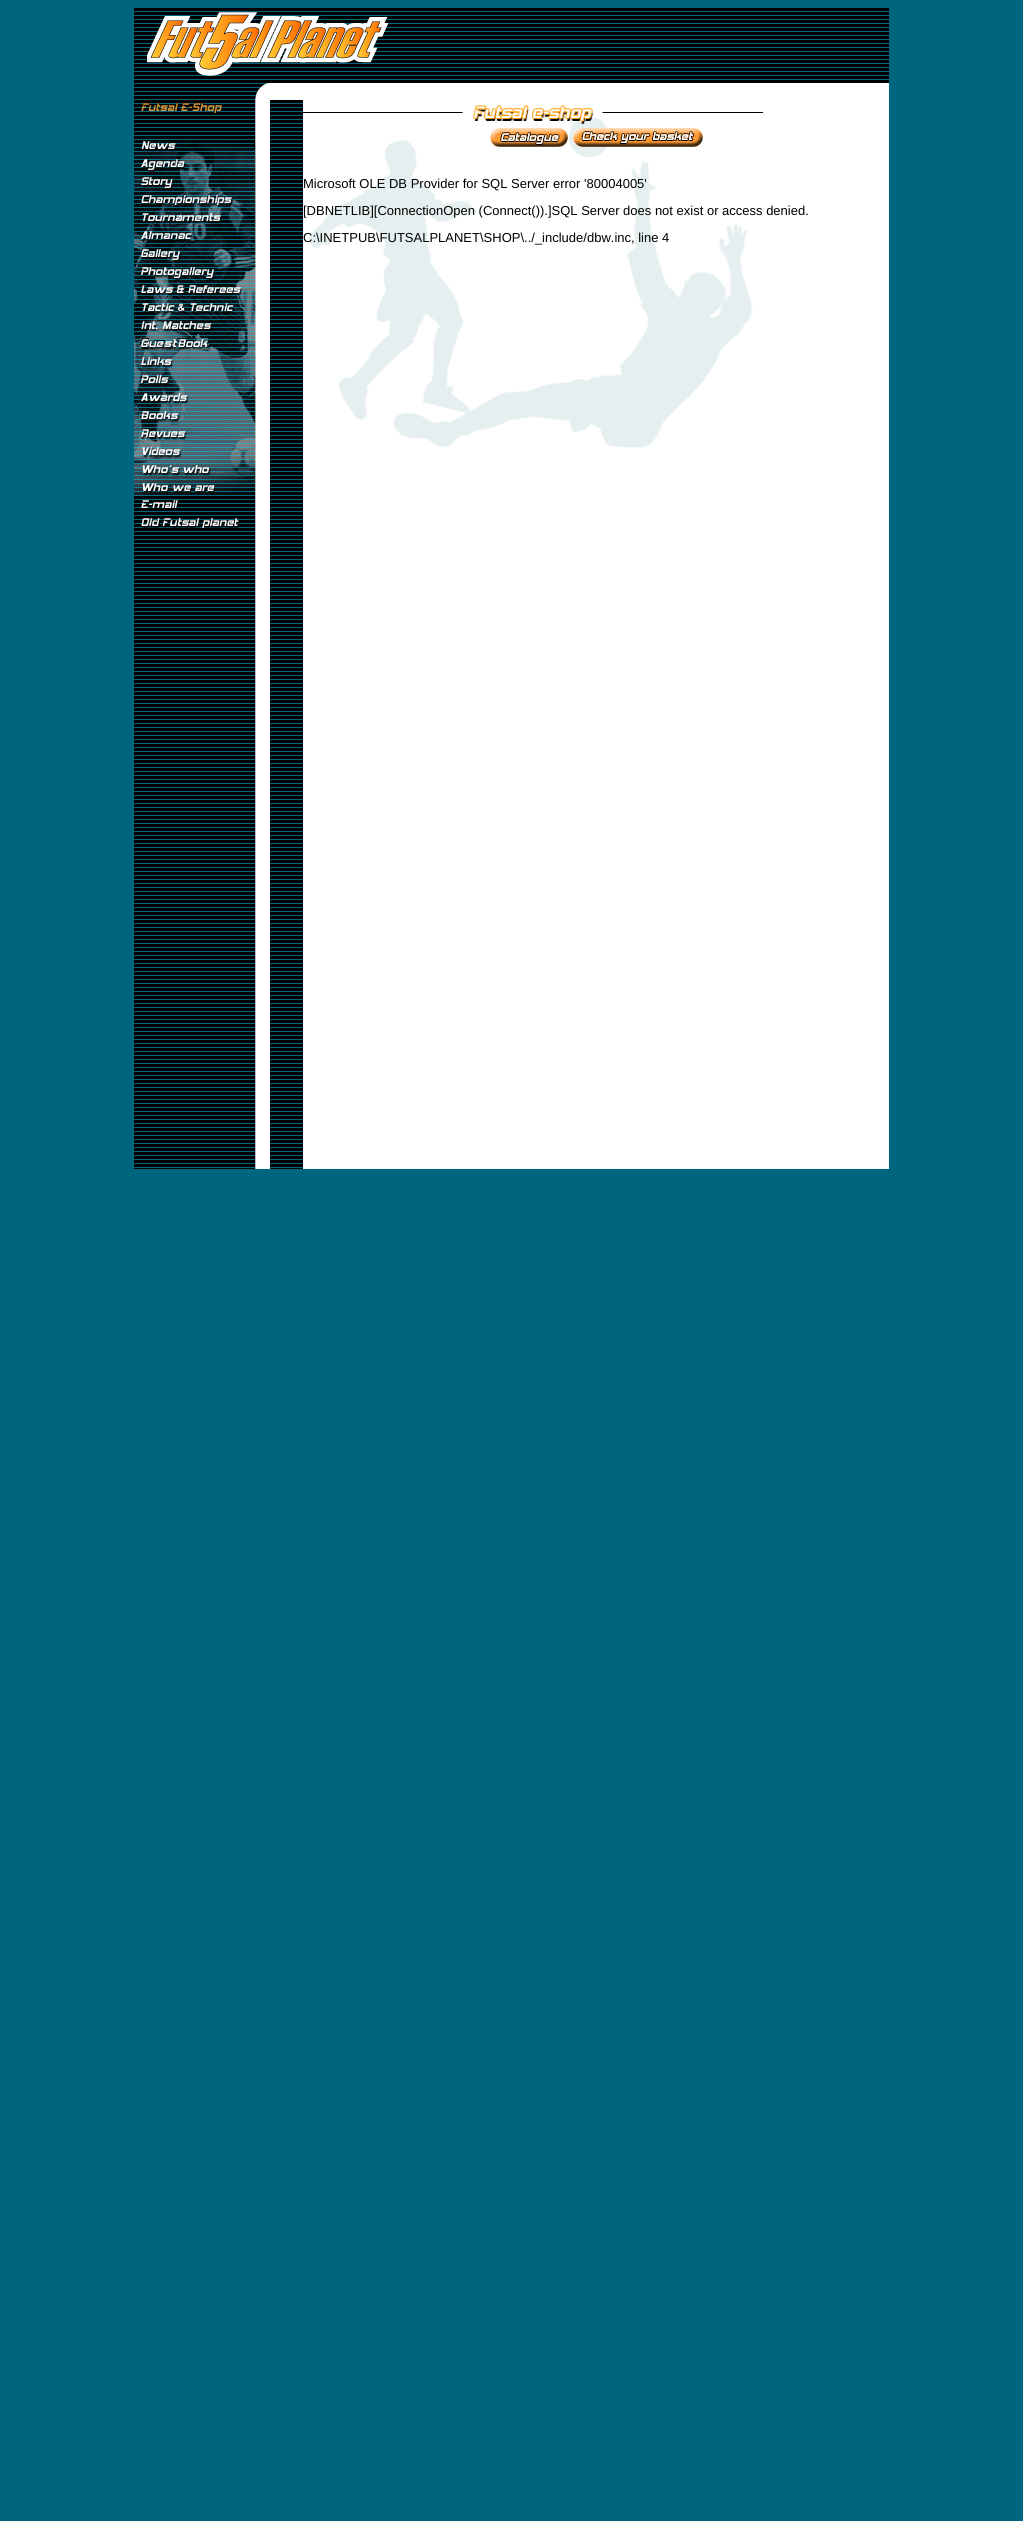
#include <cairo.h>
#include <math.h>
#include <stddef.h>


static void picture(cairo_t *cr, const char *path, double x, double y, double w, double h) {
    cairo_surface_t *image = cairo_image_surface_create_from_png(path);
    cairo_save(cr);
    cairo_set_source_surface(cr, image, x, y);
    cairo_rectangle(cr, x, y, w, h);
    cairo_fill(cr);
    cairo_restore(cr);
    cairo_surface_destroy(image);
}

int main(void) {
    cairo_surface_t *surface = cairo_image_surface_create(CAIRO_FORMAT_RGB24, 1023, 2521);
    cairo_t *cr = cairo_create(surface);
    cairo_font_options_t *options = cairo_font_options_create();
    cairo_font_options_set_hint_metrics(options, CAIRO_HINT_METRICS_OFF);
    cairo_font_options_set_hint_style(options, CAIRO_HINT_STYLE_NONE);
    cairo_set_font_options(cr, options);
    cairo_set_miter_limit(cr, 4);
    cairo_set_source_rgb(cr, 0, 0.4, 0.502);
    cairo_paint(cr);
    picture(cr, "img1.png", 134, 8, 755, 92);
    picture(cr, "img2.png", 134, 12, 255, 88);
    picture(cr, "img3.png", 134, 100, 169, 1069);
    picture(cr, "img4.png", 141, 103, 81, 10);
    picture(cr, "img5.png", 134, 136, 122, 18);
    picture(cr, "img6.png", 134, 154, 122, 18);
    picture(cr, "img7.png", 134, 172, 122, 18);
    picture(cr, "img8.png", 134, 190, 122, 18);
    picture(cr, "img9.png", 134, 208, 122, 18);
    picture(cr, "img10.png", 134, 226, 122, 18);
    picture(cr, "img11.png", 134, 244, 122, 18);
    picture(cr, "img12.png", 134, 262, 122, 18);
    picture(cr, "img13.png", 134, 280, 122, 18);
    picture(cr, "img14.png", 134, 298, 122, 18);
    picture(cr, "img15.png", 134, 316, 122, 18);
    picture(cr, "img16.png", 134, 334, 122, 18);
    picture(cr, "img17.png", 134, 352, 122, 18);
    picture(cr, "img18.png", 134, 370, 122, 18);
    picture(cr, "img19.png", 134, 388, 122, 18);
    picture(cr, "img20.png", 134, 406, 122, 18);
    picture(cr, "img21.png", 134, 424, 122, 18);
    picture(cr, "img22.png", 134, 442, 122, 18);
    picture(cr, "img23.png", 134, 460, 122, 18);
    picture(cr, "img24.png", 134, 478, 121, 18);
    picture(cr, "img25.png", 141, 500, 39, 8);
    picture(cr, "img26.png", 141, 518, 100, 10);
    picture(cr, "img27.png", 303, 100, 586, 1069);
    picture(cr, "img28.png", 303, 105, 460, 19);
    picture(cr, "img29.png", 490, 128, 78, 19);
    picture(cr, "img30.png", 573, 128, 130, 19);
    cairo_select_font_face(cr, "Liberation Sans", CAIRO_FONT_SLANT_NORMAL, CAIRO_FONT_WEIGHT_NORMAL);
    cairo_set_font_size(cr, 13);
    cairo_set_source_rgb(cr, 0, 0, 0);
    cairo_move_to(cr, 303, 188);
    cairo_show_text(cr, "Microsoft OLE DB Provider for SQL Server error '80004005'");
    cairo_move_to(cr, 303, 215);
    cairo_show_text(cr, "[DBNETLIB][ConnectionOpen (Connect()).]SQL Server does not exist or access denied.");
    cairo_move_to(cr, 303, 242);
    cairo_show_text(cr, "C:\\INETPUB\\FUTSALPLANET\\SHOP\\../_include/dbw.inc, line 4");
    cairo_surface_write_to_png(surface, "page.png");
    cairo_font_options_destroy(options);
    cairo_destroy(cr);
    cairo_surface_destroy(surface);
    return 0;
}
